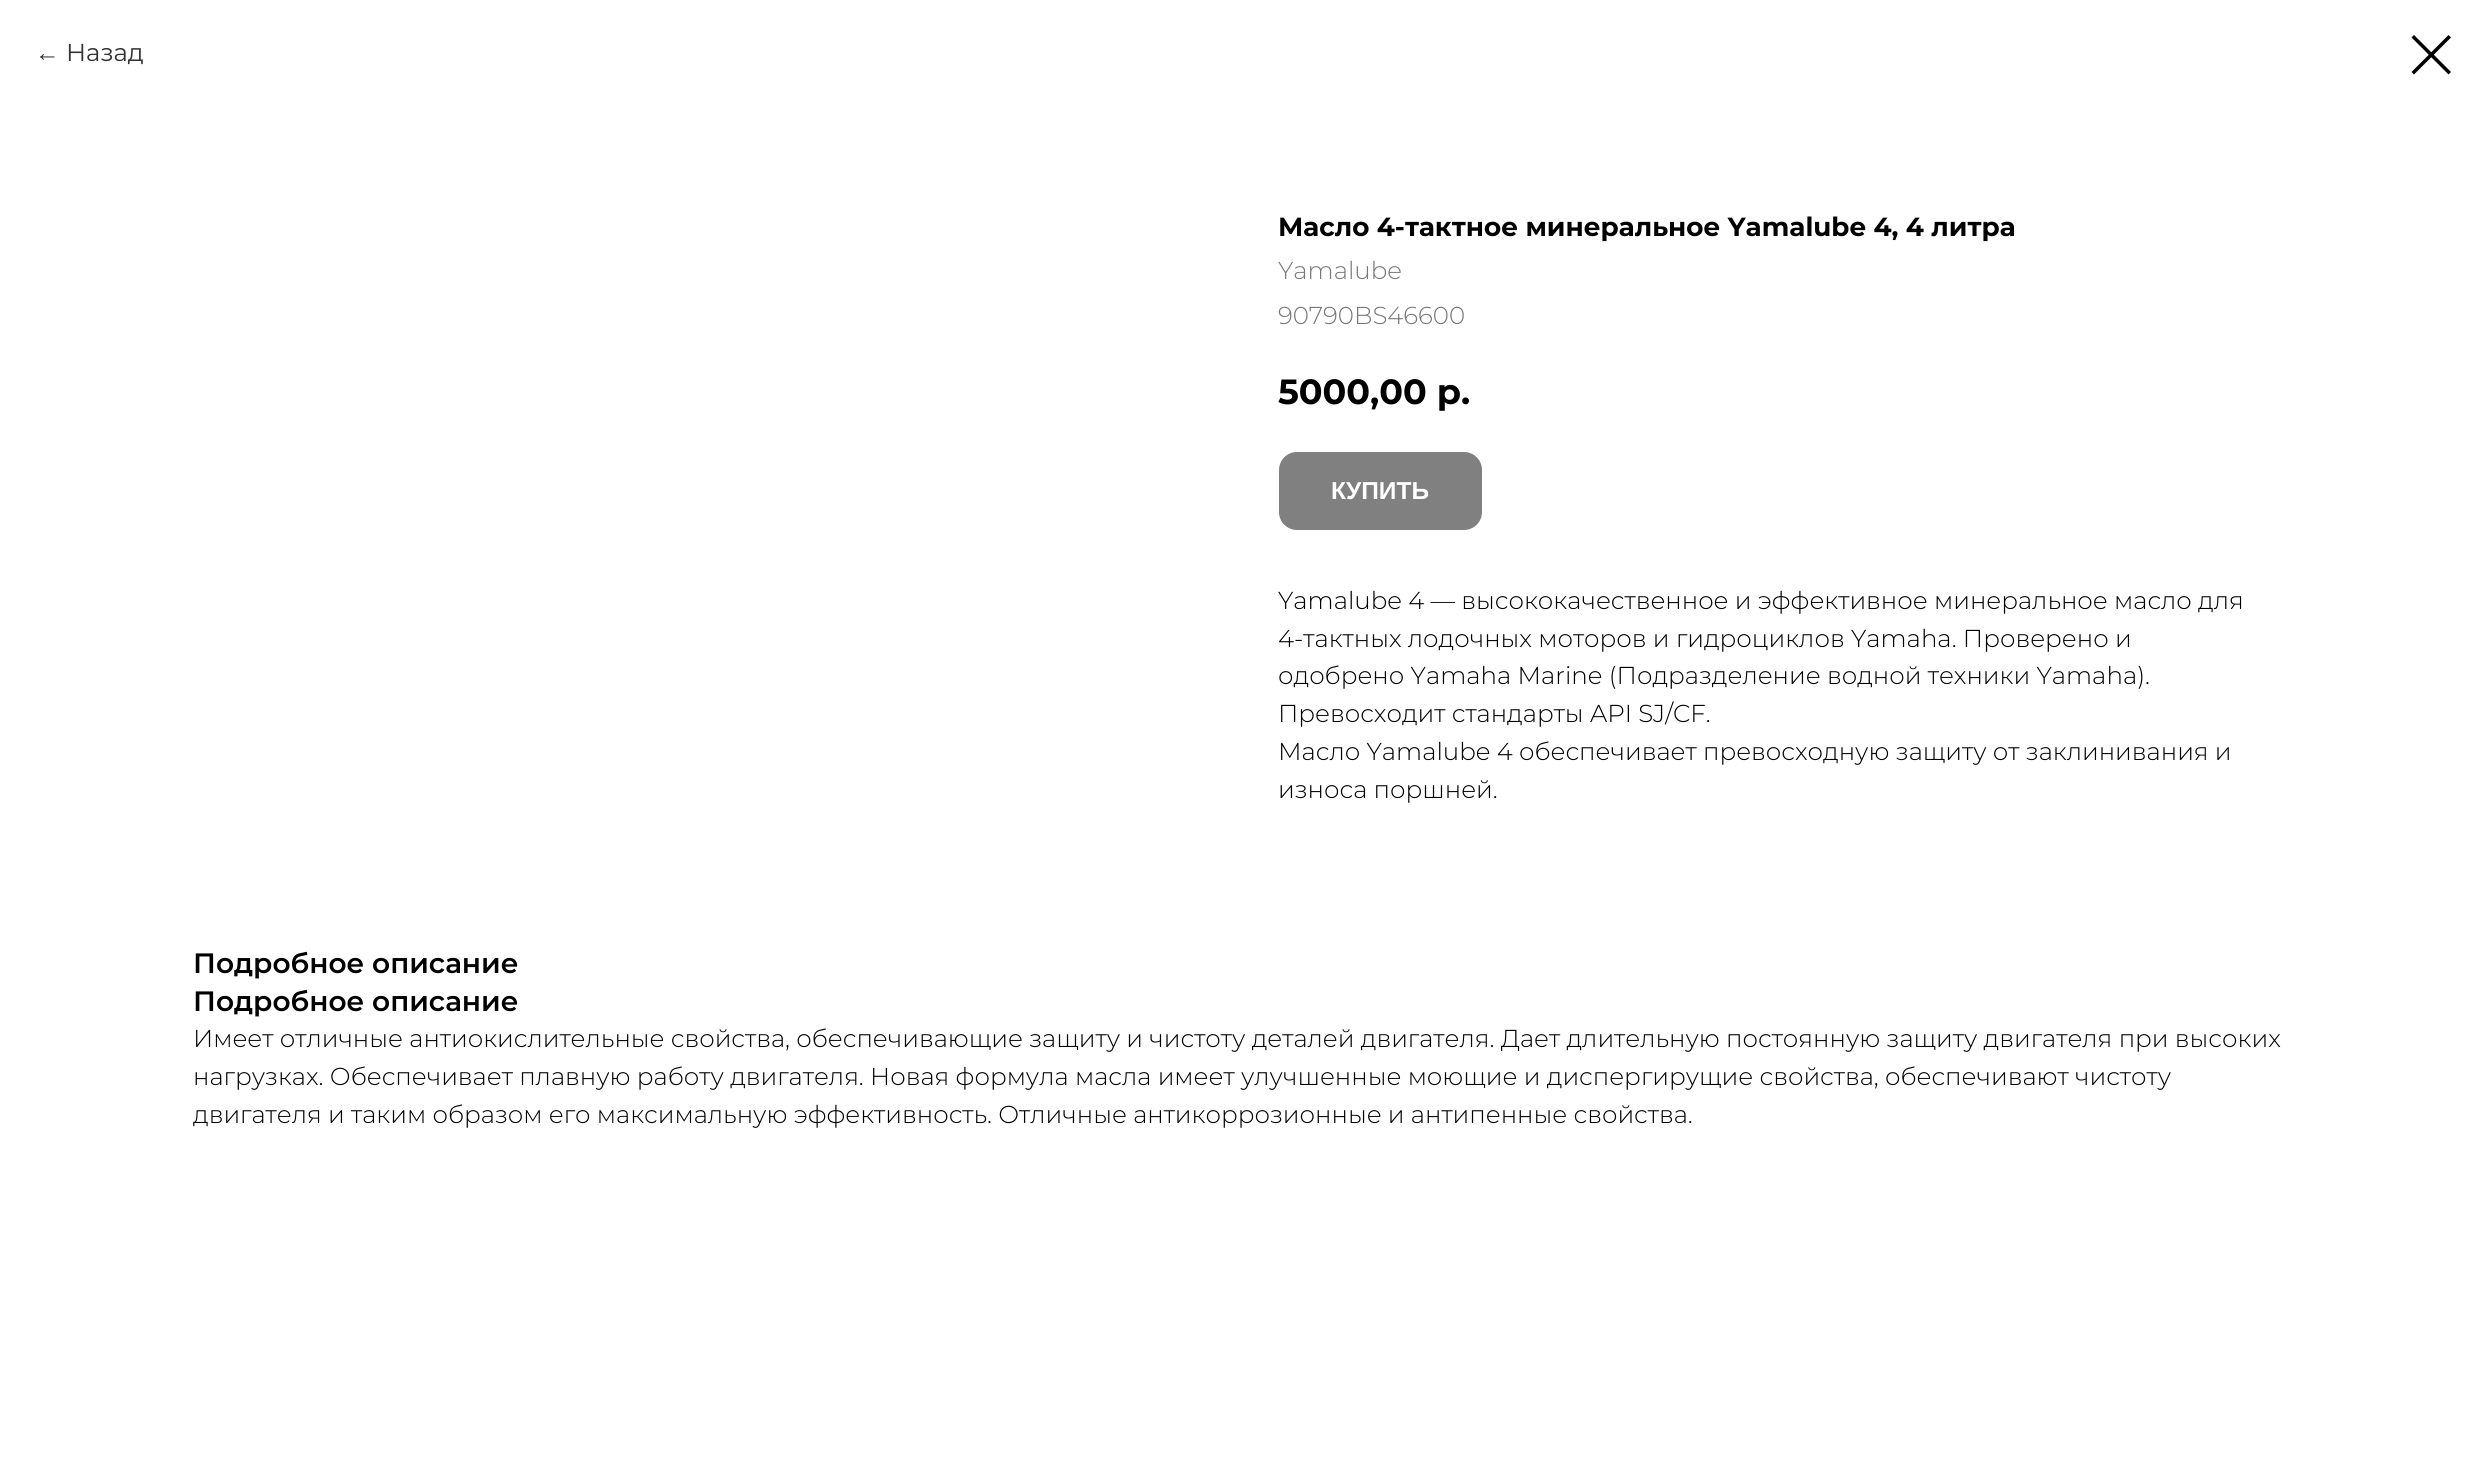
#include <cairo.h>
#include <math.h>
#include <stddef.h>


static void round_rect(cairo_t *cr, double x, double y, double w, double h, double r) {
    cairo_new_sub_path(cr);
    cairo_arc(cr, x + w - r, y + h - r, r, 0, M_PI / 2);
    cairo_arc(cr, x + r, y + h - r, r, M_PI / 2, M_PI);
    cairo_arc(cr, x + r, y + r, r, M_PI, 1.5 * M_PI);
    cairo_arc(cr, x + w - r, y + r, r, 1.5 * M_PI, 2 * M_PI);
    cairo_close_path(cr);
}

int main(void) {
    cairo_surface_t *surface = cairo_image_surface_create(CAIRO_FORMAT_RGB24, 2486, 1484);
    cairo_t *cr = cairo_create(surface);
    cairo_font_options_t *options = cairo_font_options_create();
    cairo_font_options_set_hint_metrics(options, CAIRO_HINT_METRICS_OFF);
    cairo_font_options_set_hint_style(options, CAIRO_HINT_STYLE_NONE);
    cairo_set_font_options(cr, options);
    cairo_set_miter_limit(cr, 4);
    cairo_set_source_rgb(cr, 1, 1, 1);
    cairo_paint(cr);
    cairo_select_font_face(cr, "Liberation Sans", CAIRO_FONT_SLANT_NORMAL, CAIRO_FONT_WEIGHT_NORMAL);
    cairo_set_font_size(cr, 24.5);
    cairo_set_source_rgb(cr, 0.2, 0.2, 0.2);
    cairo_move_to(cr, 35, 61);
    cairo_show_text(cr, "←");
    cairo_select_font_face(cr, "Montserrat", CAIRO_FONT_SLANT_NORMAL, CAIRO_FONT_WEIGHT_NORMAL);
    cairo_move_to(cr, 66, 61);
    cairo_show_text(cr, "Назад");
    cairo_set_source_rgb(cr, 0, 0, 0);
    cairo_set_fill_rule(cr, CAIRO_FILL_RULE_EVEN_ODD);
    cairo_new_path(cr);
    cairo_move_to(cr, 2411.5, 37.5);
    cairo_line_to(cr, 2414, 35);
    cairo_line_to(cr, 2451, 72);
    cairo_line_to(cr, 2448.5, 74.5);
    cairo_close_path(cr);
    cairo_fill(cr);
    cairo_new_path(cr);
    cairo_move_to(cr, 2448.5, 35);
    cairo_line_to(cr, 2451, 37.5);
    cairo_line_to(cr, 2414, 74.5);
    cairo_line_to(cr, 2411.5, 72);
    cairo_close_path(cr);
    cairo_fill(cr);
    cairo_select_font_face(cr, "Montserrat", CAIRO_FONT_SLANT_NORMAL, CAIRO_FONT_WEIGHT_BOLD);
    cairo_set_font_size(cr, 26.25);
    cairo_move_to(cr, 1278, 236);
    cairo_show_text(cr, "Масло 4-тактное минеральное Yamalube 4, 4 литра");
    cairo_select_font_face(cr, "Montserrat Light", CAIRO_FONT_SLANT_NORMAL, CAIRO_FONT_WEIGHT_NORMAL);
    cairo_set_font_size(cr, 24.5);
    cairo_set_source_rgb(cr, 0.467, 0.467, 0.467);
    cairo_move_to(cr, 1278, 279);
    cairo_show_text(cr, "Yamalube");
    cairo_move_to(cr, 1278, 324);
    cairo_show_text(cr, "90790BS46600");
    cairo_select_font_face(cr, "Montserrat", CAIRO_FONT_SLANT_NORMAL, CAIRO_FONT_WEIGHT_BOLD);
    cairo_set_font_size(cr, 35);
    cairo_set_source_rgb(cr, 0, 0, 0);
    cairo_move_to(cr, 1278, 404);
    cairo_show_text(cr, "5000,00 р.");
    cairo_set_source_rgb(cr, 0.502, 0.502, 0.502);
    round_rect(cr, 1279, 452, 203, 78, 18);
    cairo_fill(cr);
    cairo_select_font_face(cr, "Liberation Sans", CAIRO_FONT_SLANT_NORMAL, CAIRO_FONT_WEIGHT_BOLD);
    cairo_set_font_size(cr, 24.5);
    cairo_set_source_rgb(cr, 1, 1, 1);
    cairo_move_to(cr, 1331, 499);
    cairo_show_text(cr, "КУПИТЬ");
    cairo_select_font_face(cr, "Montserrat Light", CAIRO_FONT_SLANT_NORMAL, CAIRO_FONT_WEIGHT_NORMAL);
    cairo_set_source_rgb(cr, 0, 0, 0);
    cairo_move_to(cr, 1278, 609);
    cairo_show_text(cr, "Yamalube 4 — высококачественное и эффективное минеральное масло для");
    cairo_move_to(cr, 1278, 647);
    cairo_show_text(cr, "4-тактных лодочных моторов и гидроциклов Yamaha. Проверено и");
    cairo_move_to(cr, 1278, 684);
    cairo_show_text(cr, "одобрено Yamaha Marine (Подразделение водной техники Yamaha).");
    cairo_move_to(cr, 1278, 722);
    cairo_show_text(cr, "Превосходит стандарты API SJ/CF.");
    cairo_move_to(cr, 1278, 760);
    cairo_show_text(cr, "Масло Yamalube 4 обеспечивает превосходную защиту от заклинивания и");
    cairo_move_to(cr, 1278, 798);
    cairo_show_text(cr, "износа поршней.");
    cairo_select_font_face(cr, "Montserrat SemiBold", CAIRO_FONT_SLANT_NORMAL, CAIRO_FONT_WEIGHT_NORMAL);
    cairo_set_font_size(cr, 28);
    cairo_move_to(cr, 193, 973);
    cairo_show_text(cr, "Подробное описание");
    cairo_move_to(cr, 193, 1011);
    cairo_show_text(cr, "Подробное описание");
    cairo_select_font_face(cr, "Montserrat Light", CAIRO_FONT_SLANT_NORMAL, CAIRO_FONT_WEIGHT_NORMAL);
    cairo_set_font_size(cr, 24.5);
    cairo_move_to(cr, 193, 1047);
    cairo_show_text(cr, "Имеет отличные антиокислительные свойства, обеспечивающие защиту и чистоту деталей двигателя. Дает длительную постоянную защиту двигателя при высоких");
    cairo_move_to(cr, 193, 1085);
    cairo_show_text(cr, "нагрузках. Обеспечивает плавную работу двигателя. Новая формула масла имеет улучшенные моющие и диспергирущие свойства, обеспечивают чистоту");
    cairo_move_to(cr, 193, 1123);
    cairo_show_text(cr, "двигателя и таким образом его максимальную эффективность. Отличные антикоррозионные и антипенные свойства.");
    cairo_surface_write_to_png(surface, "page.png");
    cairo_font_options_destroy(options);
    cairo_destroy(cr);
    cairo_surface_destroy(surface);
    return 0;
}
